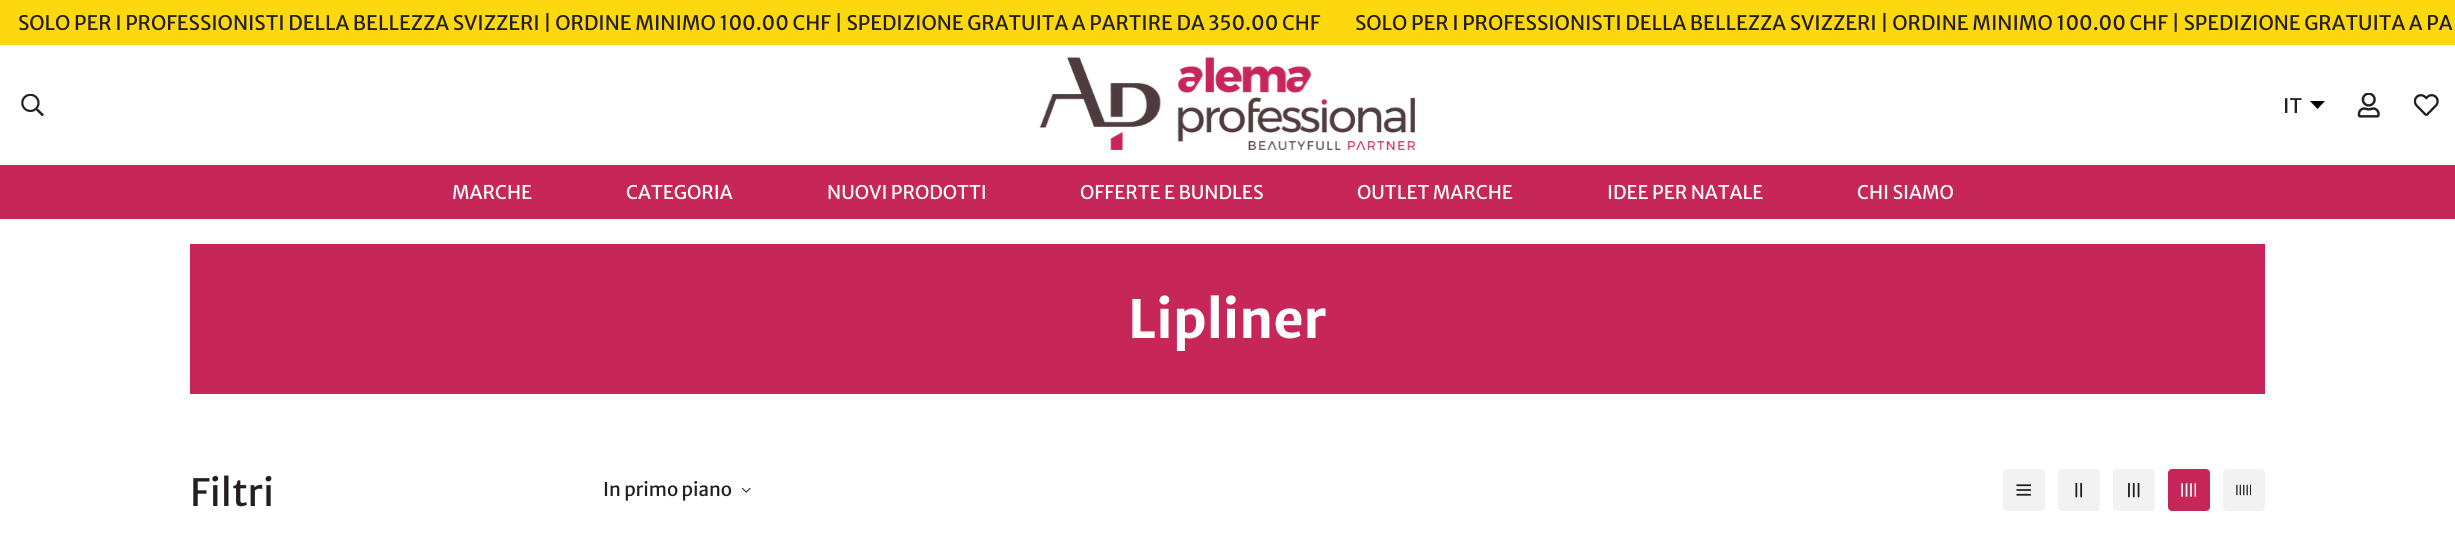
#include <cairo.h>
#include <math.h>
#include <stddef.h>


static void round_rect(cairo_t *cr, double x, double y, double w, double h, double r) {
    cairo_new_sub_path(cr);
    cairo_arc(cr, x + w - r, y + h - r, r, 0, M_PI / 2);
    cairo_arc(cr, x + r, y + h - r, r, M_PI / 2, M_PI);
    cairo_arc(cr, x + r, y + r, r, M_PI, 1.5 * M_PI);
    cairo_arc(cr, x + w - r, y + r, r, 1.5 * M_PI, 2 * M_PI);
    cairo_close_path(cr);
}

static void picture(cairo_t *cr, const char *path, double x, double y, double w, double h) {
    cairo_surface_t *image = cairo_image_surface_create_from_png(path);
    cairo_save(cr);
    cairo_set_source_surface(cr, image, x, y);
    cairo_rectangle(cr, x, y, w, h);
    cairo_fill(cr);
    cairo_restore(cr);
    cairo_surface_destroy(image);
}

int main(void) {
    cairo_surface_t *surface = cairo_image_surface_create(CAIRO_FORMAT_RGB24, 2455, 557);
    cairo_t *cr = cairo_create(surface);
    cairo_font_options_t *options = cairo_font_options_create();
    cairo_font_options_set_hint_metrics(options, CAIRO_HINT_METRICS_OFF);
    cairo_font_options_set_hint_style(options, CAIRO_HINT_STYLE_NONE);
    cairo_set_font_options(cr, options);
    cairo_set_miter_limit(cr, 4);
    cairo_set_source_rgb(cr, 1, 1, 1);
    cairo_paint(cr);
    cairo_set_source_rgb(cr, 0.996, 0.847, 0.055);
    cairo_rectangle(cr, 0, 0, 2455, 45);
    cairo_fill(cr);
    cairo_save(cr);
    cairo_rectangle(cr, 0, 13, 2455, 20);
    cairo_clip(cr);
    cairo_select_font_face(cr, "Merriweather Sans", CAIRO_FONT_SLANT_NORMAL, CAIRO_FONT_WEIGHT_NORMAL);
    cairo_set_font_size(cr, 20);
    cairo_set_source_rgb(cr, 0.137, 0.122, 0.125);
    cairo_move_to(cr, 18, 30);
    cairo_show_text(cr, "SOLO PER I PROFESSIONISTI DELLA BELLEZZA SVIZZERI | ORDINE MINIMO 100.00 CHF | SPEDIZIONE GRATUITA A PARTIRE DA 350.00 CHF");
    cairo_move_to(cr, 1355, 30);
    cairo_show_text(cr, "SOLO PER I PROFESSIONISTI DELLA BELLEZZA SVIZZERI | ORDINE MINIMO 100.00 CHF | SPEDIZIONE GRATUITA A PA");
    cairo_restore(cr);
    picture(cr, "img1.png", 21, 94, 23, 22);
    picture(cr, "img2.png", 1039, 57, 376, 93);
    cairo_select_font_face(cr, "Merriweather Sans", CAIRO_FONT_SLANT_NORMAL, CAIRO_FONT_WEIGHT_NORMAL);
    cairo_set_font_size(cr, 20);
    cairo_set_source_rgb(cr, 0.137, 0.122, 0.125);
    cairo_move_to(cr, 2283, 113);
    cairo_show_text(cr, "IT");
    cairo_set_source_rgb(cr, 0, 0, 0);
    cairo_new_path(cr);
    cairo_move_to(cr, 2310, 101);
    cairo_line_to(cr, 2325, 101);
    cairo_line_to(cr, 2317.5, 109);
    cairo_close_path(cr);
    cairo_fill(cr);
    picture(cr, "img3.png", 2357, 93, 23, 25);
    picture(cr, "img4.png", 2414, 94, 25, 22);
    cairo_set_source_rgb(cr, 0.78, 0.149, 0.349);
    cairo_rectangle(cr, 0, 165, 2455, 54);
    cairo_fill(cr);
    cairo_set_font_size(cr, 18.75);
    cairo_set_source_rgb(cr, 1, 1, 1);
    cairo_move_to(cr, 452, 199);
    cairo_show_text(cr, "MARCHE");
    cairo_move_to(cr, 626, 199);
    cairo_show_text(cr, "CATEGORIA");
    cairo_move_to(cr, 827, 199);
    cairo_show_text(cr, "NUOVI PRODOTTI");
    cairo_move_to(cr, 1080, 199);
    cairo_show_text(cr, "OFFERTE E BUNDLES");
    cairo_move_to(cr, 1357, 199);
    cairo_show_text(cr, "OUTLET MARCHE");
    cairo_move_to(cr, 1607, 199);
    cairo_show_text(cr, "IDEE PER NATALE");
    cairo_move_to(cr, 1857, 199);
    cairo_show_text(cr, "CHI SIAMO");
    cairo_set_source_rgb(cr, 0.78, 0.149, 0.349);
    cairo_rectangle(cr, 190, 244, 2075, 150);
    cairo_fill(cr);
    cairo_select_font_face(cr, "Merriweather Sans", CAIRO_FONT_SLANT_NORMAL, CAIRO_FONT_WEIGHT_BOLD);
    cairo_set_font_size(cr, 52.5);
    cairo_set_source_rgb(cr, 1, 1, 1);
    cairo_move_to(cr, 1128, 338);
    cairo_show_text(cr, "Lipliner");
    cairo_select_font_face(cr, "Merriweather Sans", CAIRO_FONT_SLANT_NORMAL, CAIRO_FONT_WEIGHT_NORMAL);
    cairo_set_font_size(cr, 37.5);
    cairo_set_source_rgb(cr, 0.137, 0.122, 0.125);
    cairo_move_to(cr, 190, 506);
    cairo_show_text(cr, "Filtri");
    cairo_set_font_size(cr, 18.75);
    cairo_move_to(cr, 603, 496);
    cairo_show_text(cr, "In primo piano");
    picture(cr, "img5.png", 742, 487, 9, 6);
    cairo_set_source_rgb(cr, 0.949, 0.949, 0.949);
    round_rect(cr, 2003, 469, 42, 42, 4);
    cairo_fill(cr);
    picture(cr, "img6.png", 2016, 484, 15, 12);
    round_rect(cr, 2058, 469, 42, 42, 4);
    cairo_fill(cr);
    picture(cr, "img7.png", 2075, 483, 8, 15);
    round_rect(cr, 2113, 469, 42, 42, 4);
    cairo_fill(cr);
    picture(cr, "img8.png", 2128, 483, 12, 15);
    cairo_set_source_rgb(cr, 0.78, 0.149, 0.349);
    round_rect(cr, 2168, 469, 42, 42, 4);
    cairo_fill(cr);
    picture(cr, "img9.png", 2181, 483, 15, 14);
    cairo_set_source_rgb(cr, 0.949, 0.949, 0.949);
    round_rect(cr, 2223, 469, 42, 42, 4);
    cairo_fill(cr);
    picture(cr, "img10.png", 2236, 484, 15, 12);
    cairo_surface_write_to_png(surface, "page.png");
    cairo_font_options_destroy(options);
    cairo_destroy(cr);
    cairo_surface_destroy(surface);
    return 0;
}
